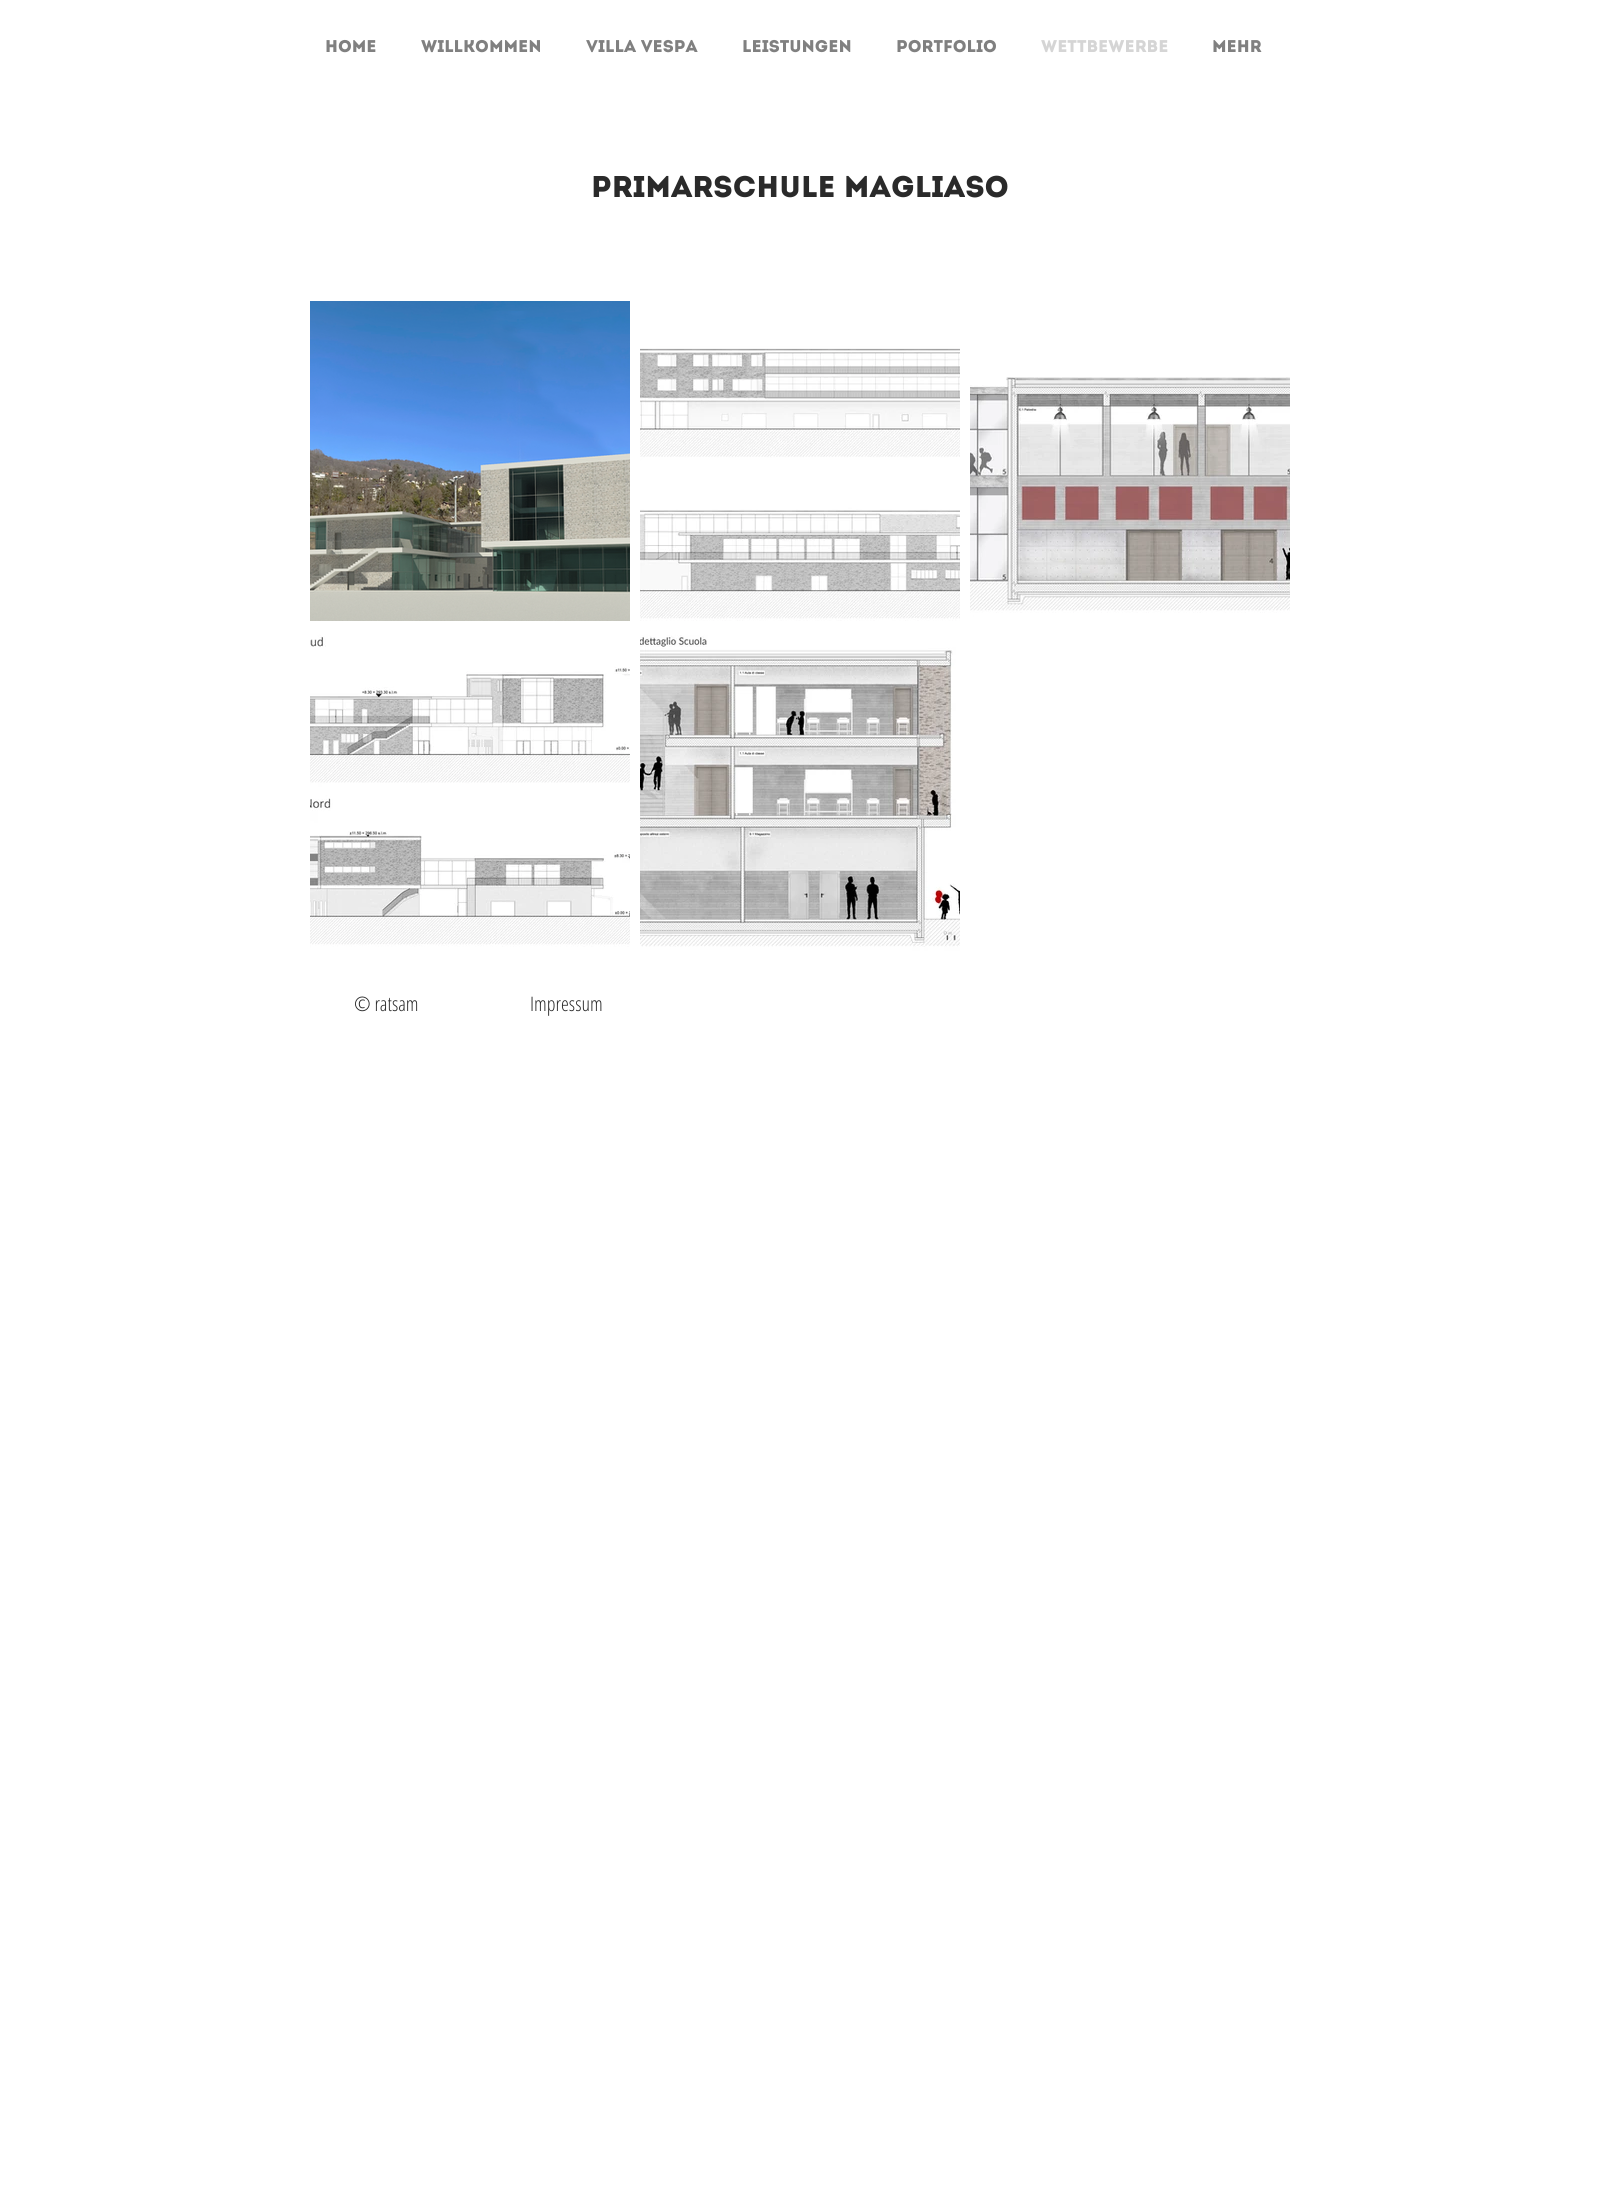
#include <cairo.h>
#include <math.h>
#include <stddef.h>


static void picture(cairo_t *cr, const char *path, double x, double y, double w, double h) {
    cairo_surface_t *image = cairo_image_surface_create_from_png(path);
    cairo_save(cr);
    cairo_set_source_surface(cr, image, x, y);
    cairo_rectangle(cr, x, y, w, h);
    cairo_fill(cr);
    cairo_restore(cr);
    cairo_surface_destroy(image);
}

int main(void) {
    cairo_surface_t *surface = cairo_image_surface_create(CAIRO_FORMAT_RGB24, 1600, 2192);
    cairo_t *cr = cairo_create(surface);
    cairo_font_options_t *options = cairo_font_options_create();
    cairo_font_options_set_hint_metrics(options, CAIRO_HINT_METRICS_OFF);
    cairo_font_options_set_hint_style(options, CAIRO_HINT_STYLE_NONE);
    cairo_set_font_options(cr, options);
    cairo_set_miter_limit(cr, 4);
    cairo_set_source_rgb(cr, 1, 1, 1);
    cairo_paint(cr);
    cairo_select_font_face(cr, "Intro", CAIRO_FONT_SLANT_NORMAL, CAIRO_FONT_WEIGHT_NORMAL);
    cairo_set_font_size(cr, 17);
    cairo_set_source_rgb(cr, 0.502, 0.502, 0.502);
    cairo_move_to(cr, 325, 52);
    cairo_show_text(cr, "Home");
    cairo_move_to(cr, 421, 52);
    cairo_show_text(cr, "Willkommen");
    cairo_move_to(cr, 586, 52);
    cairo_show_text(cr, "Villa Vespa");
    cairo_move_to(cr, 742, 52);
    cairo_show_text(cr, "Leistungen");
    cairo_move_to(cr, 896, 52);
    cairo_show_text(cr, "Portfolio");
    cairo_set_source_rgb(cr, 0.835, 0.835, 0.835);
    cairo_move_to(cr, 1041, 52);
    cairo_show_text(cr, "Wettbewerbe");
    cairo_set_source_rgb(cr, 0.502, 0.502, 0.502);
    cairo_move_to(cr, 1212, 52);
    cairo_show_text(cr, "Mehr");
    cairo_set_font_size(cr, 30);
    cairo_set_source_rgb(cr, 0.165, 0.165, 0.165);
    cairo_move_to(cr, 591, 197);
    cairo_show_text(cr, "primarschule magliaso");
    picture(cr, "img1.png", 310, 301, 320, 320);
    picture(cr, "img2.png", 640, 301, 320, 320);
    picture(cr, "img3.png", 970, 301, 320, 320);
    picture(cr, "img4.png", 310, 631, 320, 320);
    picture(cr, "img5.png", 640, 631, 320, 320);
    cairo_select_font_face(cr, "Open Sans Condensed Light", CAIRO_FONT_SLANT_NORMAL, CAIRO_FONT_WEIGHT_NORMAL);
    cairo_set_font_size(cr, 20);
    cairo_move_to(cr, 354, 1011);
    cairo_show_text(cr, "© ratsam");
    cairo_move_to(cr, 530, 1011);
    cairo_show_text(cr, "Impressum");
    cairo_surface_write_to_png(surface, "page.png");
    cairo_font_options_destroy(options);
    cairo_destroy(cr);
    cairo_surface_destroy(surface);
    return 0;
}
